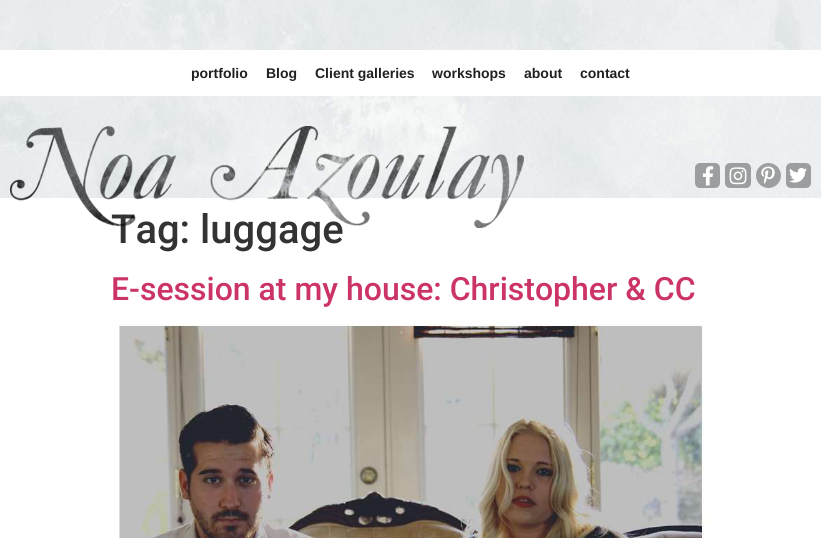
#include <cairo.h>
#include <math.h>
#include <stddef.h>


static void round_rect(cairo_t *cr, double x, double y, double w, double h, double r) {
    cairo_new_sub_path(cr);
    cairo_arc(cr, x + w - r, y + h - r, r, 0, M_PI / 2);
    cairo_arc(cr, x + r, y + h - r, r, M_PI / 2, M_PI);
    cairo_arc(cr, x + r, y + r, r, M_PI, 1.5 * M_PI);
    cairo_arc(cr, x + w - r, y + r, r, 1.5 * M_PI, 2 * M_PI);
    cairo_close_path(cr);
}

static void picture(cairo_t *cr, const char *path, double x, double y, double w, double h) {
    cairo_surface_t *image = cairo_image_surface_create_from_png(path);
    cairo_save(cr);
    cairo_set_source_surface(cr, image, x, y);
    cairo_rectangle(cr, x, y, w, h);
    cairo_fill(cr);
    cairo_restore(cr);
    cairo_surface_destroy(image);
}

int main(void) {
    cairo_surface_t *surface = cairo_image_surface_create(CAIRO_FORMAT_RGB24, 821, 538);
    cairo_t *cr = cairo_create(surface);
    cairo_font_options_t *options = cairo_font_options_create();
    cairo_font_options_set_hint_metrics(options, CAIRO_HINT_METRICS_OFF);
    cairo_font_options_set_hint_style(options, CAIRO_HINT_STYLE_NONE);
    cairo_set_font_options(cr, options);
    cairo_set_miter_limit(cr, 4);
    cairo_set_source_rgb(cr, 1, 1, 1);
    cairo_paint(cr);
    picture(cr, "img1.png", 0, 0, 821, 198);
    cairo_set_source_rgb(cr, 1, 1, 1);
    cairo_rectangle(cr, 0, 50, 821, 46);
    cairo_fill(cr);
    cairo_select_font_face(cr, "Liberation Sans", CAIRO_FONT_SLANT_NORMAL, CAIRO_FONT_WEIGHT_BOLD);
    cairo_set_font_size(cr, 14);
    cairo_set_source_rgb(cr, 0.129, 0.129, 0.129);
    cairo_move_to(cr, 191, 78);
    cairo_show_text(cr, "portfolio");
    cairo_move_to(cr, 266, 78);
    cairo_show_text(cr, "Blog");
    cairo_move_to(cr, 315, 78);
    cairo_show_text(cr, "Client galleries");
    cairo_move_to(cr, 432, 78);
    cairo_show_text(cr, "workshops");
    cairo_move_to(cr, 524, 78);
    cairo_show_text(cr, "about");
    cairo_move_to(cr, 580, 78);
    cairo_show_text(cr, "contact");
    cairo_select_font_face(cr, "Roboto Medium", CAIRO_FONT_SLANT_NORMAL, CAIRO_FONT_WEIGHT_NORMAL);
    cairo_set_font_size(cr, 40);
    cairo_set_source_rgb(cr, 0.2, 0.2, 0.2);
    cairo_move_to(cr, 111, 243);
    cairo_show_text(cr, "Tag: luggage");
    picture(cr, "img2.png", 10, 126, 514, 102);
    cairo_set_source_rgba(cr, 0.439, 0.439, 0.439, 0.64);
    round_rect(cr, 695, 163, 25, 25, 5);
    cairo_fill(cr);
    picture(cr, "img3.png", 702, 166, 12, 20);
    round_rect(cr, 725, 163, 26, 25, 5);
    cairo_fill(cr);
    picture(cr, "img4.png", 729, 167, 18, 18);
    cairo_arc(cr, 768.5, 175.5, 12.5, 0, 2 * M_PI);
    cairo_fill(cr);
    picture(cr, "img5.png", 761, 166, 14, 18);
    round_rect(cr, 786, 163, 25, 25, 5);
    cairo_fill(cr);
    picture(cr, "img6.png", 789, 168, 18, 15);
    cairo_set_font_size(cr, 32);
    cairo_set_source_rgb(cr, 0.8, 0.2, 0.4);
    cairo_move_to(cr, 111, 300);
    cairo_show_text(cr, "E-session at my house: Christopher & CC");
    picture(cr, "img7.png", 119, 324, 591, 214);
    cairo_surface_write_to_png(surface, "page.png");
    cairo_font_options_destroy(options);
    cairo_destroy(cr);
    cairo_surface_destroy(surface);
    return 0;
}
